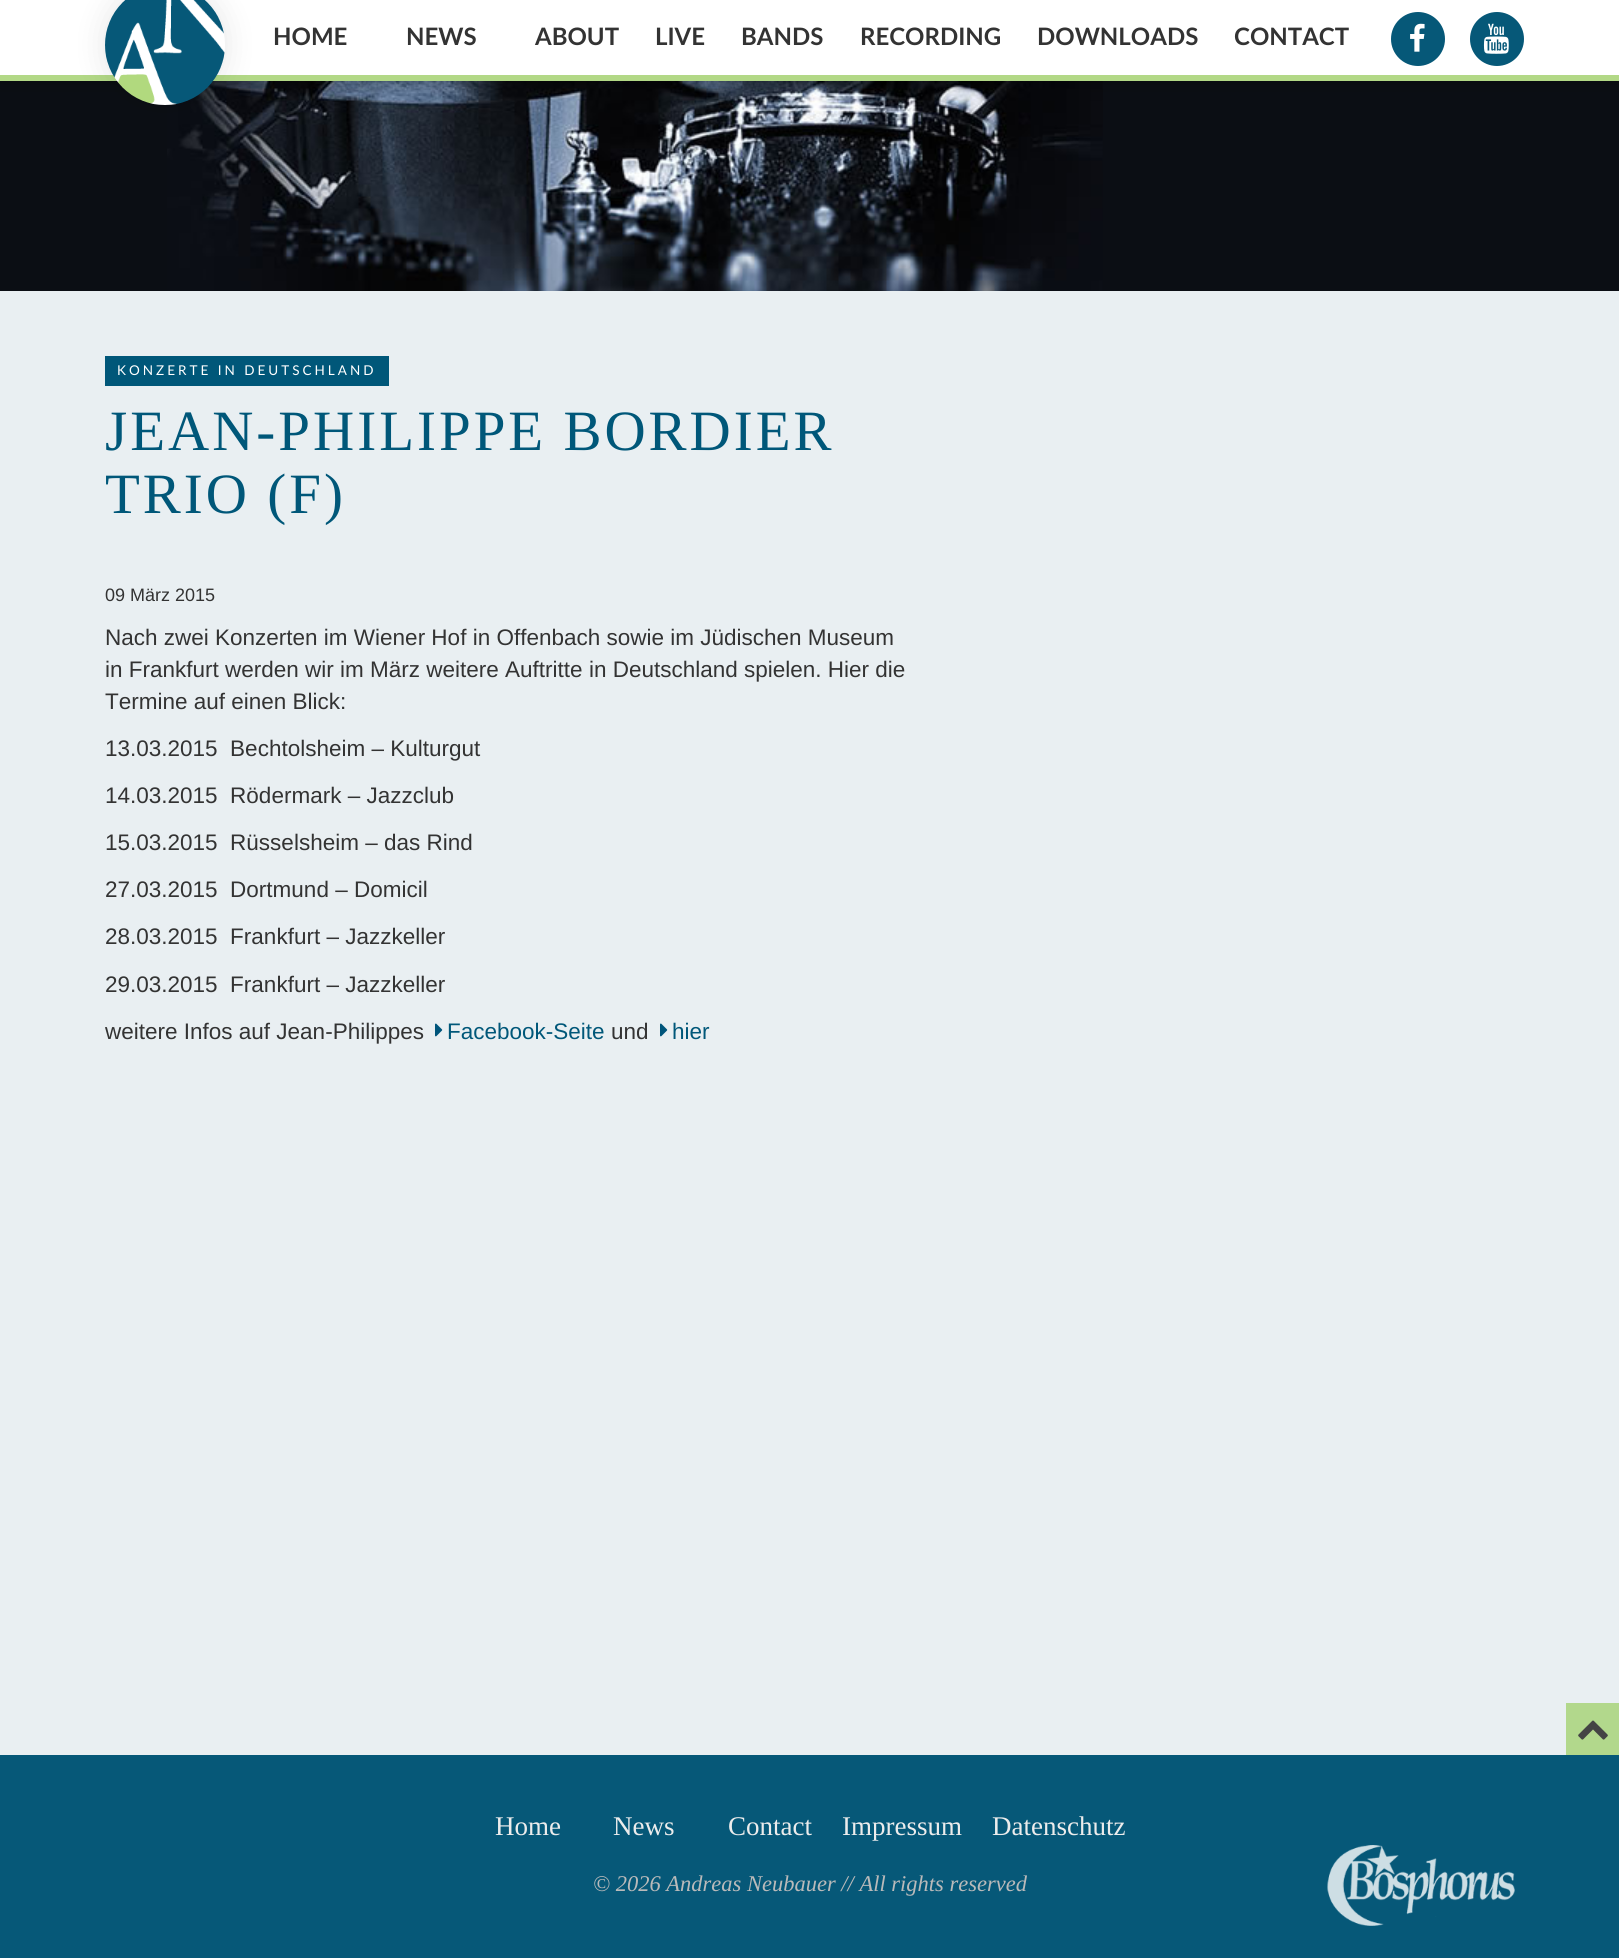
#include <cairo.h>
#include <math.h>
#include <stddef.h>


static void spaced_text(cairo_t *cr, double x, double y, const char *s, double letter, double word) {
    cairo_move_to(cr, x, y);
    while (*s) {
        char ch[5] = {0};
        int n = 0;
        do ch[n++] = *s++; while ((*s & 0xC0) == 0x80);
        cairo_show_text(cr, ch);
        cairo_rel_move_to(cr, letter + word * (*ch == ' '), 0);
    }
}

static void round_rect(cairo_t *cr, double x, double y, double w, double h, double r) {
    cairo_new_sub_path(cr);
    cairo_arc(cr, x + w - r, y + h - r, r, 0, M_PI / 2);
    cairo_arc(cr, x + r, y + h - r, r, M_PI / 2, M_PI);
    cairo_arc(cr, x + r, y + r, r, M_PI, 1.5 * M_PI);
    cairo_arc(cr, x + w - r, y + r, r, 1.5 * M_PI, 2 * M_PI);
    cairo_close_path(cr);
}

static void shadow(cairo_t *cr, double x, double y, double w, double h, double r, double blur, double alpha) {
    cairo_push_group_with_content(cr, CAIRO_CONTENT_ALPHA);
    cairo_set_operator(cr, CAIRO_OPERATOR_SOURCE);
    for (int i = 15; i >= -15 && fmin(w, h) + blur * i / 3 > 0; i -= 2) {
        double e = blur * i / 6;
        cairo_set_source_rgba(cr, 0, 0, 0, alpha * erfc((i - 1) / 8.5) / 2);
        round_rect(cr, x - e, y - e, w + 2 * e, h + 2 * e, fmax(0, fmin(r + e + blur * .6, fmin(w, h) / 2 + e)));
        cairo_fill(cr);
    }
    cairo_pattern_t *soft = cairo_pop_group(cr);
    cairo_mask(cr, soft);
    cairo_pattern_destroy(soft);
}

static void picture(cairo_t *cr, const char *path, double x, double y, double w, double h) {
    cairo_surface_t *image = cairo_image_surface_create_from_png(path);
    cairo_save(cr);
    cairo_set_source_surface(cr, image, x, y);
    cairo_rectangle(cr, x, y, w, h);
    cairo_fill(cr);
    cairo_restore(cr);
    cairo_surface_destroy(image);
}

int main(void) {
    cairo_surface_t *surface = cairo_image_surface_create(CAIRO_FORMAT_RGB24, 1619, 1958);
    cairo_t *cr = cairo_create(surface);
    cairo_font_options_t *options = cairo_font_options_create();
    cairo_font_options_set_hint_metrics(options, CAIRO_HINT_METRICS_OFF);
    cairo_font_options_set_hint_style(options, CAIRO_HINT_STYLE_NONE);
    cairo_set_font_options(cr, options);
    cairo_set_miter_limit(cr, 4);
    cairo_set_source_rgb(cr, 1, 1, 1);
    cairo_paint(cr);
    cairo_set_source_rgb(cr, 0.043, 0.055, 0.082);
    cairo_rectangle(cr, 0, 81, 1619, 210);
    cairo_fill(cr);
    picture(cr, "img4.png", 167, 81, 936, 210);
    cairo_save(cr);
    cairo_rectangle(cr, 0, 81, 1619, 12);
    cairo_clip(cr);
    cairo_set_source_rgb(cr, 0.004, 0.004, 0.004);
    shadow(cr, 0, 0, 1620, 81, 0, 7.5, 0.4);
    cairo_restore(cr);
    cairo_set_source_rgb(cr, 0.698, 0.847, 0.525);
    cairo_rectangle(cr, 0, 75, 1619, 6);
    cairo_fill(cr);
    cairo_set_source_rgb(cr, 0, 0, 0);
    shadow(cr, 105, -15, 120, 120, 60, 15, 0.1);
    picture(cr, "img1.png", 105, 0, 120, 105);
    cairo_select_font_face(cr, "Lato", CAIRO_FONT_SLANT_NORMAL, CAIRO_FONT_WEIGHT_BOLD);
    cairo_set_font_size(cr, 24);
    cairo_set_source_rgb(cr, 0.2, 0.2, 0.2);
    cairo_move_to(cr, 273, 45);
    cairo_show_text(cr, "HOME");
    cairo_move_to(cr, 406, 45);
    cairo_show_text(cr, "NEWS");
    cairo_move_to(cr, 535, 45);
    cairo_show_text(cr, "ABOUT");
    cairo_move_to(cr, 655, 45);
    cairo_show_text(cr, "LIVE");
    cairo_move_to(cr, 741, 45);
    cairo_show_text(cr, "BANDS");
    cairo_move_to(cr, 860, 45);
    cairo_show_text(cr, "RECORDING");
    cairo_move_to(cr, 1037, 45);
    cairo_show_text(cr, "DOWNLOADS");
    cairo_move_to(cr, 1234, 45);
    cairo_show_text(cr, "CONTACT");
    cairo_set_source_rgb(cr, 0.024, 0.345, 0.471);
    cairo_new_path(cr);
    cairo_arc(cr, 1418, 39, 27, 0, 2 * M_PI);
    cairo_fill(cr);
    picture(cr, "img2.png", 1410, 23, 15, 29);
    cairo_arc(cr, 1497, 39, 27, 0, 2 * M_PI);
    cairo_fill(cr);
    picture(cr, "img3.png", 1483, 23, 26, 31);
    cairo_set_source_rgb(cr, 0.914, 0.937, 0.949);
    cairo_rectangle(cr, 0, 291, 1619, 1464);
    cairo_fill(cr);
    cairo_set_source_rgb(cr, 0, 0.341, 0.475);
    cairo_rectangle(cr, 105, 356, 284, 30);
    cairo_fill(cr);
    cairo_select_font_face(cr, "Lato", CAIRO_FONT_SLANT_NORMAL, CAIRO_FONT_WEIGHT_NORMAL);
    cairo_set_font_size(cr, 13.5);
    cairo_set_source_rgb(cr, 1, 1, 1);
    spaced_text(cr, 117, 375, "KONZERTE IN DEUTSCHLAND", 3, 0);
    cairo_select_font_face(cr, "Liberation Serif", CAIRO_FONT_SLANT_NORMAL, CAIRO_FONT_WEIGHT_NORMAL);
    cairo_set_font_size(cr, 57);
    cairo_set_source_rgb(cr, 0, 0.341, 0.475);
    spaced_text(cr, 105, 450, "JEAN-PHILIPPE BORDIER", 3, 0);
    spaced_text(cr, 105, 513, "TRIO (F)", 3, 0);
    cairo_select_font_face(cr, "Liberation Sans", CAIRO_FONT_SLANT_NORMAL, CAIRO_FONT_WEIGHT_NORMAL);
    cairo_set_font_size(cr, 18);
    cairo_set_source_rgb(cr, 0.2, 0.2, 0.2);
    cairo_move_to(cr, 105, 601);
    cairo_show_text(cr, "09 März 2015");
    cairo_set_font_size(cr, 22.5);
    cairo_move_to(cr, 105, 645);
    cairo_show_text(cr, "Nach zwei Konzerten im Wiener Hof in Offenbach sowie im Jüdischen Museum");
    cairo_move_to(cr, 105, 677);
    cairo_show_text(cr, "in Frankfurt werden wir im März weitere Auftritte in Deutschland spielen. Hier die");
    cairo_move_to(cr, 105, 709);
    cairo_show_text(cr, "Termine auf einen Blick:");
    cairo_move_to(cr, 105, 756);
    cairo_show_text(cr, "13.03.2015  Bechtolsheim – Kulturgut");
    cairo_move_to(cr, 105, 803);
    cairo_show_text(cr, "14.03.2015  Rödermark – Jazzclub");
    cairo_move_to(cr, 105, 850);
    cairo_show_text(cr, "15.03.2015  Rüsselsheim – das Rind");
    cairo_move_to(cr, 105, 897);
    cairo_show_text(cr, "27.03.2015  Dortmund – Domicil");
    cairo_move_to(cr, 105, 944);
    cairo_show_text(cr, "28.03.2015  Frankfurt – Jazzkeller");
    cairo_move_to(cr, 105, 992);
    cairo_show_text(cr, "29.03.2015  Frankfurt – Jazzkeller");
    cairo_move_to(cr, 105, 1039);
    cairo_show_text(cr, "weitere Infos auf Jean-Philippes");
    picture(cr, "img5.png", 435, 1023, 8, 14);
    cairo_set_source_rgb(cr, 0, 0.341, 0.475);
    cairo_move_to(cr, 447, 1039);
    cairo_show_text(cr, "Facebook-Seite");
    cairo_set_source_rgb(cr, 0.2, 0.2, 0.2);
    cairo_move_to(cr, 611, 1039);
    cairo_show_text(cr, "und");
    picture(cr, "img5.png", 660, 1023, 8, 14);
    cairo_set_source_rgb(cr, 0, 0.341, 0.475);
    cairo_move_to(cr, 672, 1039);
    cairo_show_text(cr, "hier");
    cairo_set_source_rgb(cr, 0.698, 0.847, 0.549);
    cairo_rectangle(cr, 1566, 1703, 53, 52);
    cairo_fill(cr);
    picture(cr, "img6.png", 1578, 1720, 30, 20);
    cairo_set_source_rgb(cr, 0.024, 0.345, 0.471);
    cairo_rectangle(cr, 0, 1755, 1619, 203);
    cairo_fill(cr);
    cairo_select_font_face(cr, "Liberation Serif", CAIRO_FONT_SLANT_NORMAL, CAIRO_FONT_WEIGHT_NORMAL);
    cairo_set_font_size(cr, 27);
    cairo_set_source_rgb(cr, 0.922, 0.922, 0.922);
    cairo_move_to(cr, 495, 1835);
    cairo_show_text(cr, "Home");
    cairo_move_to(cr, 613, 1835);
    cairo_show_text(cr, "News");
    cairo_move_to(cr, 728, 1835);
    cairo_show_text(cr, "Contact");
    cairo_move_to(cr, 842, 1835);
    cairo_show_text(cr, "Impressum");
    cairo_move_to(cr, 992, 1835);
    cairo_show_text(cr, "Datenschutz");
    cairo_select_font_face(cr, "Liberation Serif", CAIRO_FONT_SLANT_ITALIC, CAIRO_FONT_WEIGHT_NORMAL);
    cairo_set_font_size(cr, 22.5);
    cairo_set_source_rgb(cr, 0.729, 0.729, 0.729);
    cairo_move_to(cr, 593, 1891);
    cairo_show_text(cr, "© 2026 Andreas Neubauer // All rights reserved");
    picture(cr, "img7.png", 1327, 1845, 188, 81);
    cairo_surface_write_to_png(surface, "page.png");
    cairo_font_options_destroy(options);
    cairo_destroy(cr);
    cairo_surface_destroy(surface);
    return 0;
}
